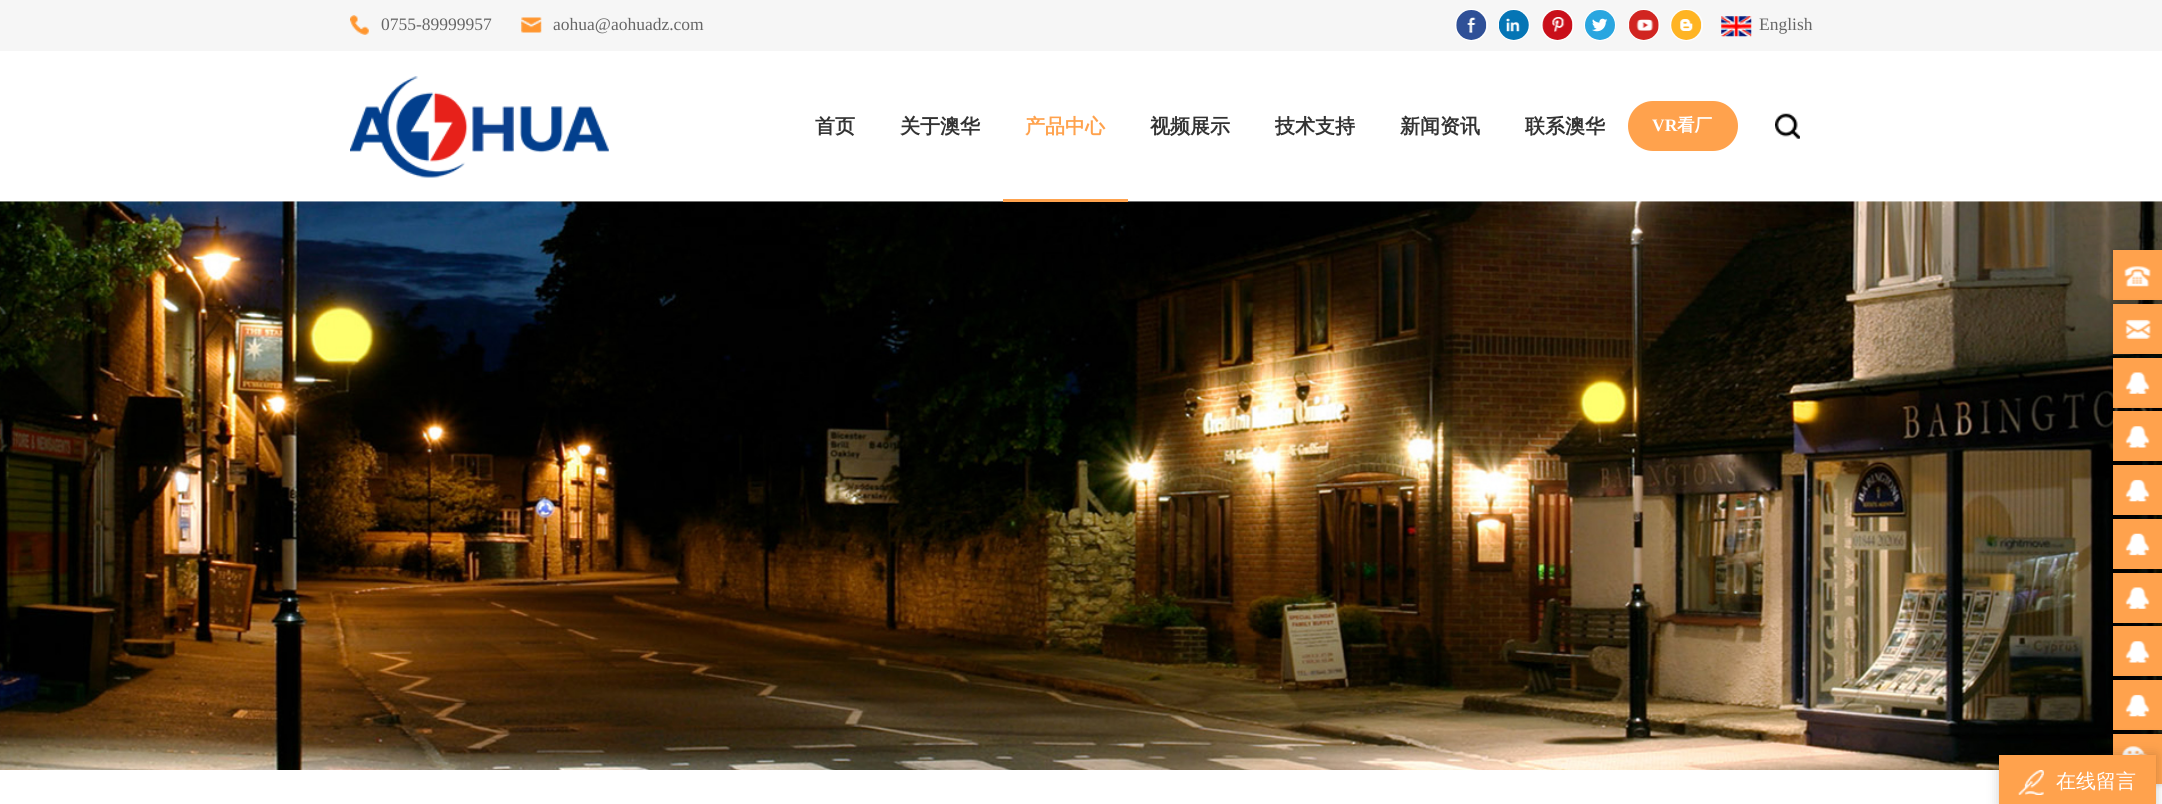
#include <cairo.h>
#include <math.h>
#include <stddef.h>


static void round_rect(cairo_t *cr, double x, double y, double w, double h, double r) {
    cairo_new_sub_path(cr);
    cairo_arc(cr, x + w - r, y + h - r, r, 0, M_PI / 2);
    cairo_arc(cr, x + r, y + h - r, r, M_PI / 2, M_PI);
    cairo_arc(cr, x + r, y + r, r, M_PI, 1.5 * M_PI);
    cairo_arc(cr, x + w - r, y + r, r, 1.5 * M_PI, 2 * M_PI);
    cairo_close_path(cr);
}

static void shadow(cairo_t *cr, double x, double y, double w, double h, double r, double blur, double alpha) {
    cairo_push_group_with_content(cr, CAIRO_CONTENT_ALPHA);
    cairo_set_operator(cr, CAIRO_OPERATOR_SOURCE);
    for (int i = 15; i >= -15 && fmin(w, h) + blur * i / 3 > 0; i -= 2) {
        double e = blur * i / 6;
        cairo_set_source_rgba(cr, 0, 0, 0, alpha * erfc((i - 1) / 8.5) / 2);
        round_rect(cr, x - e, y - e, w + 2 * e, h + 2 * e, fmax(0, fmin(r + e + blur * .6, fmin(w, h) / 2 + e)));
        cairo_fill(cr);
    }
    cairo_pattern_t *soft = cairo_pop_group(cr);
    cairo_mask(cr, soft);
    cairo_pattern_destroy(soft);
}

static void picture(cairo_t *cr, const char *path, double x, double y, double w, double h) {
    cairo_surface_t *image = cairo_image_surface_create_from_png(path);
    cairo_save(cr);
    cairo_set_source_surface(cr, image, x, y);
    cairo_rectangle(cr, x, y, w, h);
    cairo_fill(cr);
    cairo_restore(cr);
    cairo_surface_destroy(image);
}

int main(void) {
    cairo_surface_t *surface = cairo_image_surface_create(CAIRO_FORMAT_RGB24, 2162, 804);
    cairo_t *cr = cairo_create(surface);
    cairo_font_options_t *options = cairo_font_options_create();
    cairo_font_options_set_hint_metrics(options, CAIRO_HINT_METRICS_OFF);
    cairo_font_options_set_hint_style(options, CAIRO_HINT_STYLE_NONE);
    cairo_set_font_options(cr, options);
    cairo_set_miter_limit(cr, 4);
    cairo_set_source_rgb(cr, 1, 1, 1);
    cairo_paint(cr);
    cairo_set_source_rgb(cr, 0.961, 0.961, 0.961);
    cairo_rectangle(cr, 0, 0, 2162, 51);
    cairo_fill(cr);
    picture(cr, "img1.png", 350, 15, 19, 20);
    cairo_select_font_face(cr, "Liberation Serif", CAIRO_FONT_SLANT_NORMAL, CAIRO_FONT_WEIGHT_NORMAL);
    cairo_set_font_size(cr, 17.5);
    cairo_set_source_rgb(cr, 0.4, 0.4, 0.4);
    cairo_move_to(cr, 381, 30);
    cairo_show_text(cr, "0755-89999957");
    picture(cr, "img2.png", 521, 17, 21, 16);
    cairo_move_to(cr, 553, 30);
    cairo_show_text(cr, "aohua@aohuadz.com");
    round_rect(cr, 1455.5, 9.5, 32, 31, 15.5);
    cairo_set_source_rgb(cr, 1, 1, 1);
    cairo_set_line_width(cr, 1);
    cairo_stroke(cr);
    picture(cr, "img3.png", 1456, 10, 31, 30);
    cairo_arc(cr, 1514, 25, 15.5, 0, 2 * M_PI);
    cairo_stroke(cr);
    picture(cr, "img4.png", 1499, 10, 30, 30);
    round_rect(cr, 1541.5, 9.5, 32, 31, 15.5);
    cairo_stroke(cr);
    picture(cr, "img5.png", 1542, 10, 31, 30);
    cairo_arc(cr, 1600, 25, 15.5, 0, 2 * M_PI);
    cairo_stroke(cr);
    picture(cr, "img6.png", 1585, 10, 30, 30);
    cairo_arc(cr, 1644, 25, 15.5, 0, 2 * M_PI);
    cairo_stroke(cr);
    picture(cr, "img7.png", 1629, 10, 30, 30);
    round_rect(cr, 1670.5, 9.5, 32, 31, 15.5);
    cairo_stroke(cr);
    picture(cr, "img8.png", 1671, 10, 30, 30);
    picture(cr, "img9.png", 1721, 16, 31, 21);
    cairo_set_source_rgb(cr, 0.4, 0.4, 0.4);
    cairo_move_to(cr, 1759, 30);
    cairo_show_text(cr, "English");
    picture(cr, "img10.png", 350, 76, 259, 102);
    cairo_select_font_face(cr, "WenQuanYi Zen Hei", CAIRO_FONT_SLANT_NORMAL, CAIRO_FONT_WEIGHT_BOLD);
    cairo_set_font_size(cr, 20);
    cairo_set_source_rgb(cr, 0.2, 0.2, 0.2);
    cairo_move_to(cr, 815, 133);
    cairo_show_text(cr, "首页");
    cairo_move_to(cr, 900, 133);
    cairo_show_text(cr, "关于澳华");
    cairo_set_source_rgb(cr, 1, 0.635, 0.302);
    cairo_move_to(cr, 1025, 133);
    cairo_show_text(cr, "产品中心");
    picture(cr, "img12.png", 0, 201, 2162, 569);
    cairo_rectangle(cr, 1003, 199, 125, 3);
    cairo_fill(cr);
    cairo_set_source_rgb(cr, 0.2, 0.2, 0.2);
    cairo_move_to(cr, 1150, 133);
    cairo_show_text(cr, "视频展示");
    cairo_move_to(cr, 1275, 133);
    cairo_show_text(cr, "技术支持");
    cairo_move_to(cr, 1400, 133);
    cairo_show_text(cr, "新闻资讯");
    cairo_move_to(cr, 1525, 133);
    cairo_show_text(cr, "联系澳华");
    cairo_set_source_rgb(cr, 1, 0.635, 0.302);
    round_rect(cr, 1628, 101, 110, 50, 25);
    cairo_fill(cr);
    cairo_select_font_face(cr, "Liberation Serif", CAIRO_FONT_SLANT_NORMAL, CAIRO_FONT_WEIGHT_BOLD);
    cairo_set_font_size(cr, 17.5);
    cairo_set_source_rgb(cr, 1, 1, 1);
    cairo_move_to(cr, 1652, 131);
    cairo_show_text(cr, "VR");
    cairo_select_font_face(cr, "WenQuanYi Zen Hei", CAIRO_FONT_SLANT_NORMAL, CAIRO_FONT_WEIGHT_BOLD);
    cairo_move_to(cr, 1677, 131);
    cairo_show_text(cr, "看厂");
    picture(cr, "img11.png", 1775, 113, 25, 26);
    cairo_set_source_rgb(cr, 0, 0, 0);
    shadow(cr, 2113, 250, 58, 50, 0, 3, 0.2);
    cairo_set_source_rgb(cr, 1, 0.635, 0.302);
    cairo_rectangle(cr, 2113, 250, 49, 50);
    cairo_fill(cr);
    picture(cr, "img13.png", 2124, 266, 27, 21);
    cairo_set_source_rgb(cr, 0, 0, 0);
    shadow(cr, 2113, 304, 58, 50, 0, 3, 0.2);
    cairo_set_source_rgb(cr, 1, 0.635, 0.302);
    cairo_rectangle(cr, 2113, 304, 49, 50);
    cairo_fill(cr);
    picture(cr, "img14.png", 2125, 319, 26, 20);
    cairo_set_source_rgb(cr, 0, 0, 0);
    shadow(cr, 2113, 358, 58, 50, 0, 3, 0.2);
    cairo_set_source_rgb(cr, 1, 0.635, 0.302);
    cairo_rectangle(cr, 2113, 358, 49, 50);
    cairo_fill(cr);
    picture(cr, "img15.png", 2125, 372, 25, 22);
    cairo_set_source_rgb(cr, 0, 0, 0);
    shadow(cr, 2113, 411, 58, 50, 0, 3, 0.2);
    cairo_set_source_rgb(cr, 1, 0.635, 0.302);
    cairo_rectangle(cr, 2113, 411, 49, 50);
    cairo_fill(cr);
    picture(cr, "img16.png", 2125, 426, 25, 22);
    cairo_rectangle(cr, 2113, 465, 49, 50);
    cairo_fill(cr);
    picture(cr, "img17.png", 2125, 479, 25, 23);
    cairo_rectangle(cr, 2113, 519, 49, 50);
    cairo_fill(cr);
    picture(cr, "img18.png", 2125, 533, 25, 23);
    cairo_rectangle(cr, 2113, 573, 49, 50);
    cairo_fill(cr);
    picture(cr, "img15.png", 2125, 587, 25, 22);
    cairo_rectangle(cr, 2113, 626, 49, 50);
    cairo_fill(cr);
    picture(cr, "img16.png", 2125, 641, 25, 22);
    cairo_set_source_rgba(cr, 0, 0, 0, 0.2);
    round_rect(cr, 2094, 680, 62, 63, 31);
    cairo_fill(cr);
    cairo_set_source_rgb(cr, 0, 0, 0);
    shadow(cr, 2113, 680, 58, 50, 0, 3, 0.2);
    cairo_set_source_rgb(cr, 1, 0.635, 0.302);
    cairo_rectangle(cr, 2113, 680, 49, 50);
    cairo_fill(cr);
    picture(cr, "img17.png", 2125, 694, 25, 23);
    cairo_set_source_rgb(cr, 0, 0, 0);
    shadow(cr, 2113, 734, 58, 50, 0, 3, 0.2);
    cairo_set_source_rgb(cr, 1, 0.635, 0.302);
    cairo_rectangle(cr, 2113, 734, 49, 50);
    cairo_fill(cr);
    picture(cr, "img19.png", 2121, 746, 28, 9);
    cairo_set_source_rgb(cr, 0, 0, 0);
    shadow(cr, 1999, 755, 157, 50, 0, 6, 0.2);
    cairo_set_source_rgb(cr, 1, 0.635, 0.302);
    cairo_rectangle(cr, 1999, 755, 157, 49);
    cairo_fill(cr);
    picture(cr, "img20.png", 2018, 770, 26, 25);
    cairo_select_font_face(cr, "WenQuanYi Zen Hei Medium", CAIRO_FONT_SLANT_NORMAL, CAIRO_FONT_WEIGHT_NORMAL);
    cairo_set_font_size(cr, 20);
    cairo_set_source_rgb(cr, 1, 1, 1);
    cairo_move_to(cr, 2056, 788);
    cairo_show_text(cr, "在线留言");
    cairo_surface_write_to_png(surface, "page.png");
    cairo_font_options_destroy(options);
    cairo_destroy(cr);
    cairo_surface_destroy(surface);
    return 0;
}
